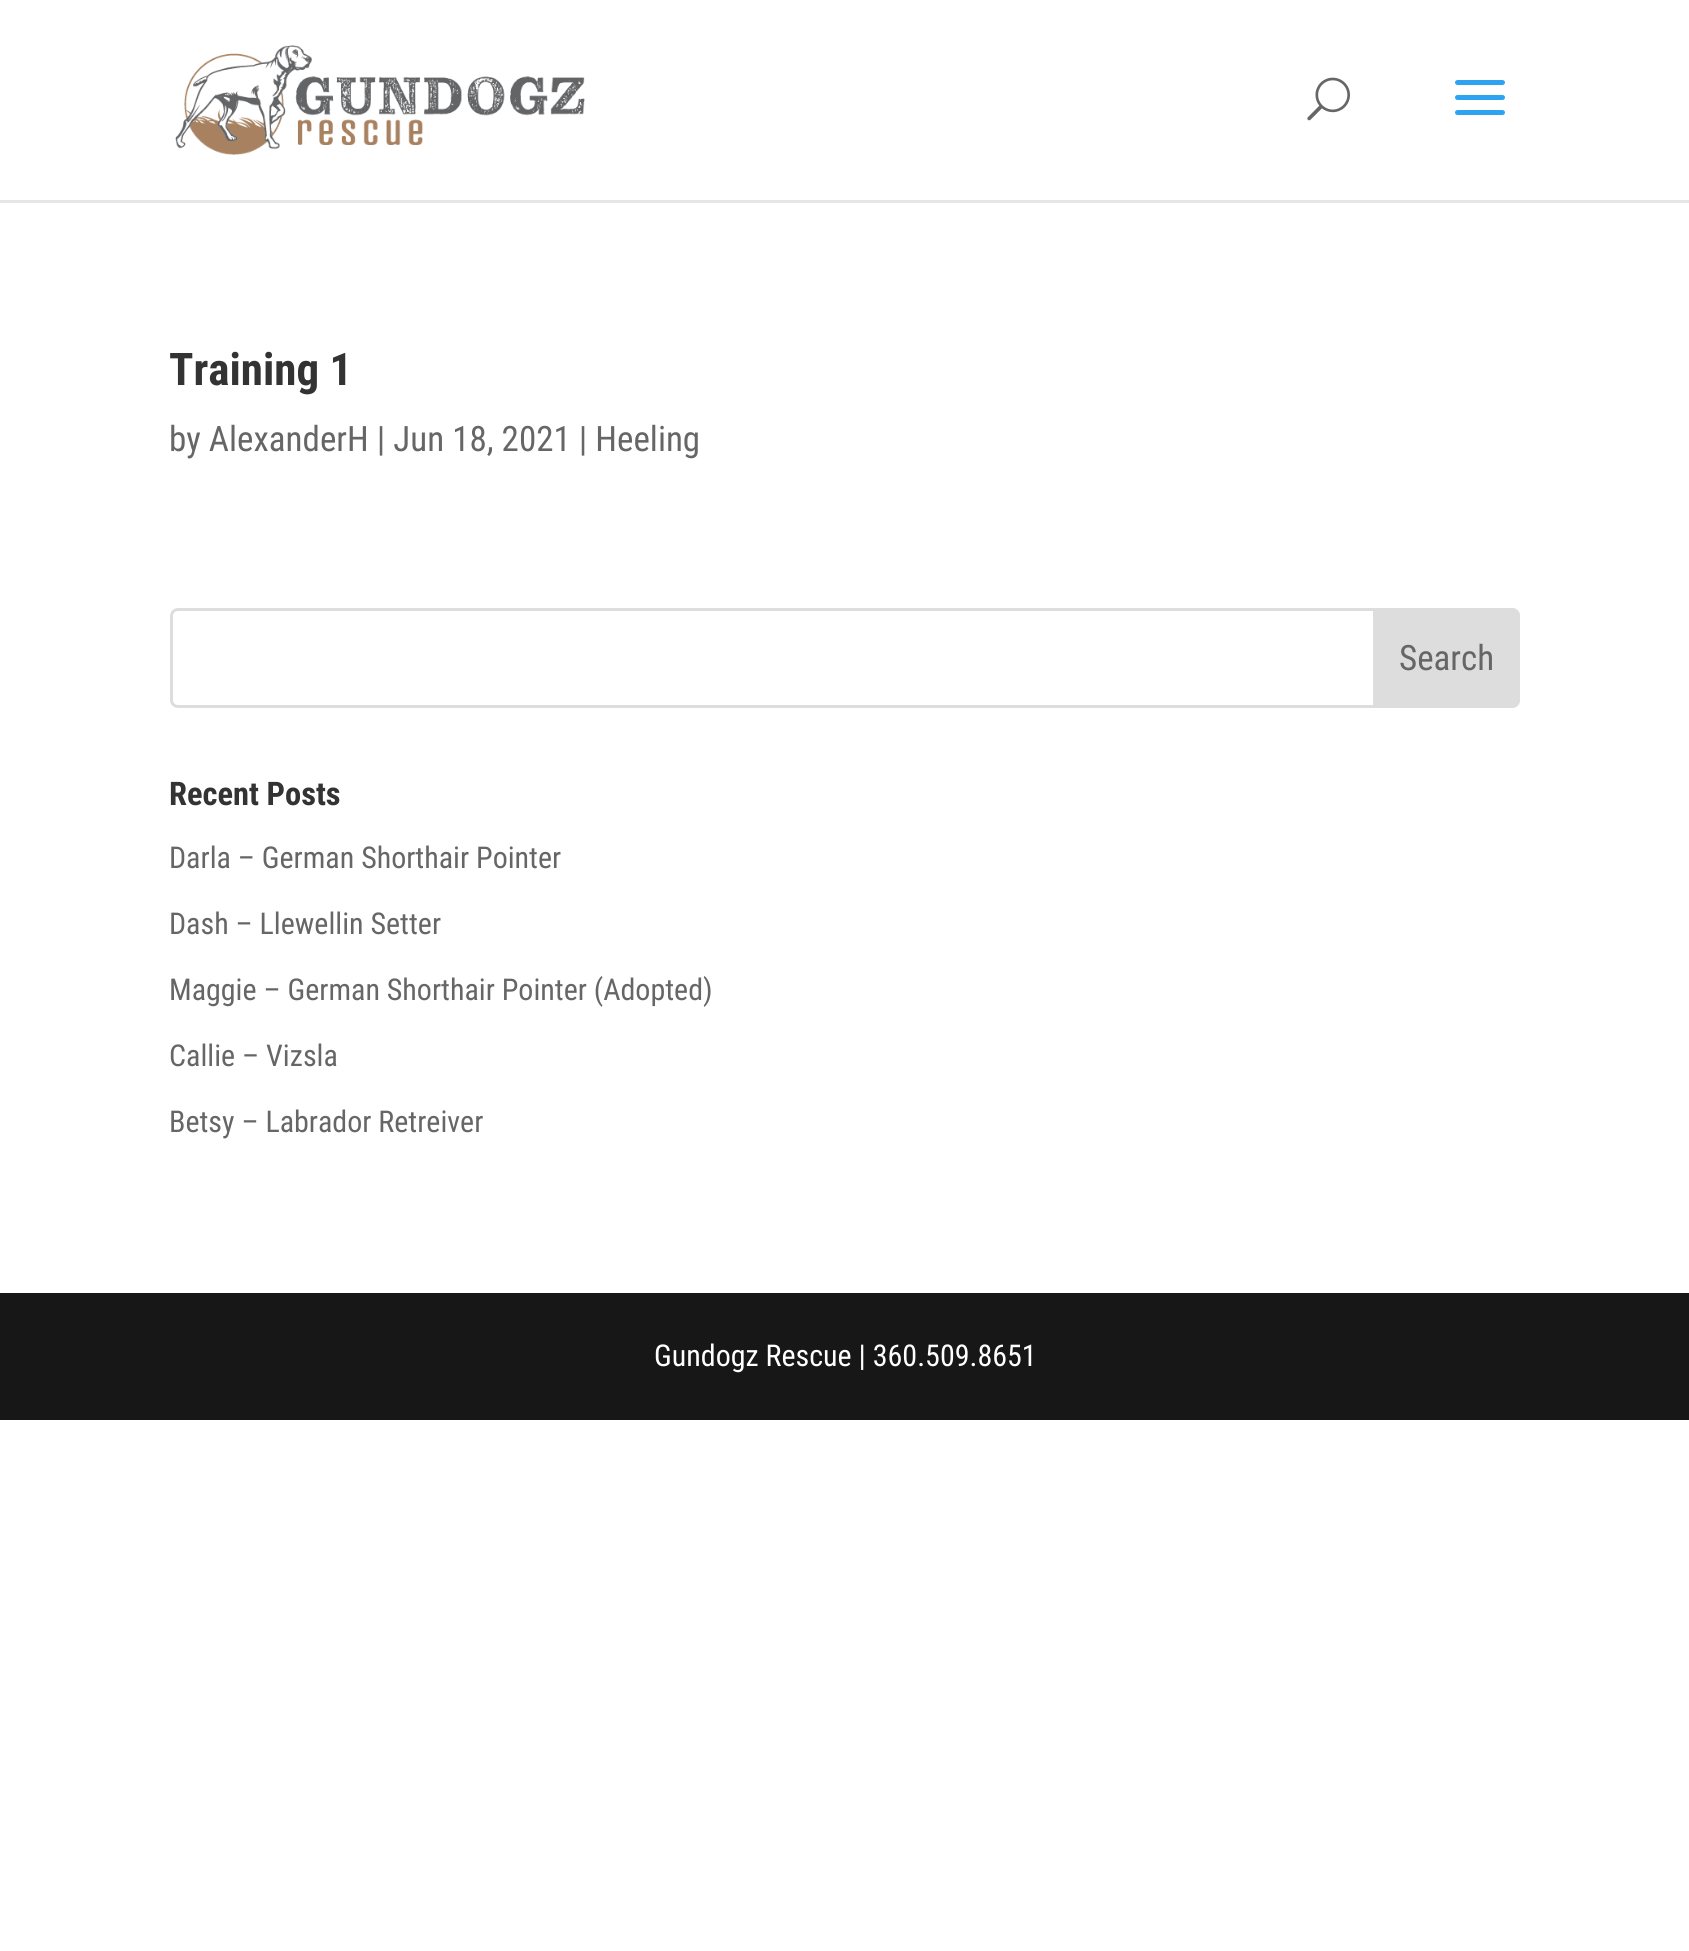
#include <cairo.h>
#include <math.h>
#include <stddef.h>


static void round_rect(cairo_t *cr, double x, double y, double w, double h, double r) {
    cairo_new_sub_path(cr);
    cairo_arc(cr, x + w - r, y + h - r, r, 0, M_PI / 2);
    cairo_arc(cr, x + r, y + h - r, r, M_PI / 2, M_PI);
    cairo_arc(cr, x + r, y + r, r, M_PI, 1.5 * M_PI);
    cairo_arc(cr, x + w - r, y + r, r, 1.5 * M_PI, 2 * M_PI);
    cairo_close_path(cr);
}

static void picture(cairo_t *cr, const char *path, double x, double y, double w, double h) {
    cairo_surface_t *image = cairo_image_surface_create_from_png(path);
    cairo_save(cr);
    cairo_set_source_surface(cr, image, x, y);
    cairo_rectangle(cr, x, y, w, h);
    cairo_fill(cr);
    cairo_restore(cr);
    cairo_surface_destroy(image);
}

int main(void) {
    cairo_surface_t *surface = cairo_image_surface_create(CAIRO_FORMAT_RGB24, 1689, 1951);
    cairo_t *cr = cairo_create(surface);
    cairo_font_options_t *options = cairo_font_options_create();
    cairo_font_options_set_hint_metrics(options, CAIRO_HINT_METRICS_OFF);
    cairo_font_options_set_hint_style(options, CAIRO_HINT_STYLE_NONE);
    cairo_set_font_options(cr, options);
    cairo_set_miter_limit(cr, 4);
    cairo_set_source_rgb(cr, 1, 1, 1);
    cairo_paint(cr);
    cairo_set_source_rgb(cr, 0.902, 0.902, 0.902);
    cairo_rectangle(cr, 0, 200, 1689, 3);
    cairo_fill(cr);
    picture(cr, "img1.png", 175, 45, 410, 110);
    picture(cr, "img2.png", 1307, 77, 43, 44);
    picture(cr, "img3.png", 1455, 80, 50, 35);
    cairo_select_font_face(cr, "Roboto Condensed", CAIRO_FONT_SLANT_NORMAL, CAIRO_FONT_WEIGHT_BOLD);
    cairo_set_font_size(cr, 45);
    cairo_set_source_rgb(cr, 0.2, 0.2, 0.2);
    cairo_move_to(cr, 169, 385);
    cairo_show_text(cr, "Training 1");
    cairo_select_font_face(cr, "Roboto Condensed", CAIRO_FONT_SLANT_NORMAL, CAIRO_FONT_WEIGHT_NORMAL);
    cairo_set_font_size(cr, 35);
    cairo_set_source_rgb(cr, 0.4, 0.4, 0.4);
    cairo_move_to(cr, 169, 451);
    cairo_show_text(cr, "by AlexanderH | Jun 18, 2021 | Heeling");
    round_rect(cr, 171.5, 609.5, 1347, 97, 6.5);
    cairo_set_source_rgb(cr, 0.867, 0.867, 0.867);
    cairo_set_line_width(cr, 3);
    cairo_stroke(cr);
    cairo_new_path(cr);
    cairo_move_to(cr, 1374.5, 609.5);
    cairo_line_to(cr, 1512, 609.5);
    cairo_curve_to(cr, 1515.5, 609.5, 1518.5, 612.5, 1518.5, 616);
    cairo_line_to(cr, 1518.5, 700);
    cairo_curve_to(cr, 1518.5, 703.5, 1515.5, 706.5, 1512, 706.5);
    cairo_line_to(cr, 1374.5, 706.5);
    cairo_close_path(cr);
    cairo_fill_preserve(cr);
    cairo_stroke(cr);
    cairo_set_source_rgb(cr, 0.4, 0.4, 0.4);
    cairo_move_to(cr, 1399, 670);
    cairo_show_text(cr, "Search");
    cairo_select_font_face(cr, "Roboto Condensed", CAIRO_FONT_SLANT_NORMAL, CAIRO_FONT_WEIGHT_BOLD);
    cairo_set_font_size(cr, 32.5);
    cairo_set_source_rgb(cr, 0.2, 0.2, 0.2);
    cairo_move_to(cr, 169, 805);
    cairo_show_text(cr, "Recent Posts");
    cairo_select_font_face(cr, "Roboto Condensed", CAIRO_FONT_SLANT_NORMAL, CAIRO_FONT_WEIGHT_NORMAL);
    cairo_set_font_size(cr, 30);
    cairo_set_source_rgb(cr, 0.4, 0.4, 0.4);
    cairo_move_to(cr, 169, 868);
    cairo_show_text(cr, "Darla – German Shorthair Pointer");
    cairo_move_to(cr, 169, 934);
    cairo_show_text(cr, "Dash – Llewellin Setter");
    cairo_move_to(cr, 169, 1000);
    cairo_show_text(cr, "Maggie – German Shorthair Pointer (Adopted)");
    cairo_move_to(cr, 169, 1066);
    cairo_show_text(cr, "Callie – Vizsla");
    cairo_move_to(cr, 169, 1132);
    cairo_show_text(cr, "Betsy – Labrador Retreiver");
    cairo_set_source_rgb(cr, 0.09, 0.09, 0.09);
    cairo_rectangle(cr, 0, 1293, 1689, 127);
    cairo_fill(cr);
    cairo_set_source_rgb(cr, 1, 1, 1);
    cairo_move_to(cr, 654, 1366);
    cairo_show_text(cr, "Gundogz Rescue | 360.509.8651");
    cairo_surface_write_to_png(surface, "page.png");
    cairo_font_options_destroy(options);
    cairo_destroy(cr);
    cairo_surface_destroy(surface);
    return 0;
}
